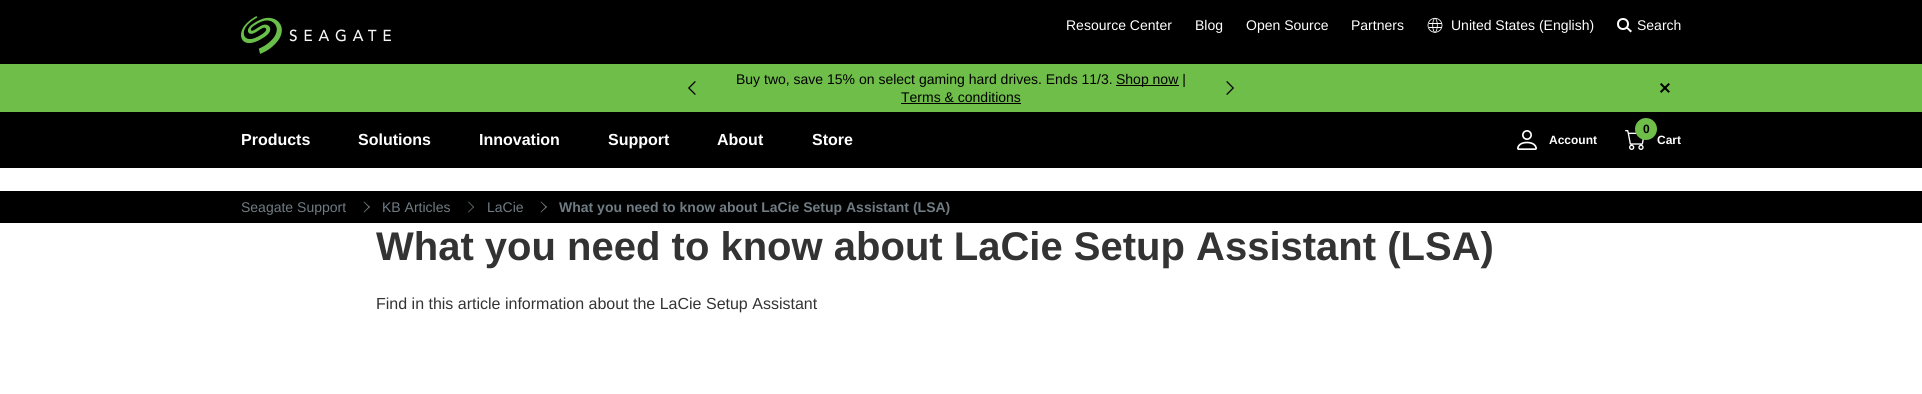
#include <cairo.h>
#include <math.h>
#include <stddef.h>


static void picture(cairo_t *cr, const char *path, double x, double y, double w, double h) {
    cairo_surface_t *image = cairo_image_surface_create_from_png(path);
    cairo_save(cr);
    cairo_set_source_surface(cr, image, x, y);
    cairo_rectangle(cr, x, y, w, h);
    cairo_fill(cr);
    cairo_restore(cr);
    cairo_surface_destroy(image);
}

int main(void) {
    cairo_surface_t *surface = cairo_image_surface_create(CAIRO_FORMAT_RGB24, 1922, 394);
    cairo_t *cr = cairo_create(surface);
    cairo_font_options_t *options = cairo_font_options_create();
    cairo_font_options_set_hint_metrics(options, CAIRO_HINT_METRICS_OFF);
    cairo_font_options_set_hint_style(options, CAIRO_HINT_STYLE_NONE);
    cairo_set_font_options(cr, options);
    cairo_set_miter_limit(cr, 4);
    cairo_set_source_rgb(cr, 1, 1, 1);
    cairo_paint(cr);
    cairo_set_source_rgb(cr, 0, 0, 0);
    cairo_rectangle(cr, 0, 0, 1922, 64);
    cairo_fill(cr);
    picture(cr, "img1.png", 241, 16, 150, 38);
    cairo_select_font_face(cr, "Liberation Sans", CAIRO_FONT_SLANT_NORMAL, CAIRO_FONT_WEIGHT_NORMAL);
    cairo_set_font_size(cr, 14);
    cairo_set_source_rgb(cr, 1, 1, 1);
    cairo_move_to(cr, 1066, 30);
    cairo_show_text(cr, "Resource Center");
    cairo_move_to(cr, 1195, 30);
    cairo_show_text(cr, "Blog");
    cairo_move_to(cr, 1246, 30);
    cairo_show_text(cr, "Open Source");
    cairo_move_to(cr, 1351, 30);
    cairo_show_text(cr, "Partners");
    picture(cr, "img2.png", 1427, 17, 16, 16);
    cairo_move_to(cr, 1451, 30);
    cairo_show_text(cr, "United States (English)");
    cairo_new_path(cr);
    cairo_arc(cr, 1623, 24, 5, 0, 2 * M_PI);
    cairo_stroke(cr);
    cairo_new_path(cr);
    cairo_move_to(cr, 1627.5, 27);
    cairo_line_to(cr, 1632, 31);
    cairo_line_to(cr, 1630.5, 32.5);
    cairo_line_to(cr, 1626, 28);
    cairo_close_path(cr);
    cairo_fill(cr);
    cairo_move_to(cr, 1637, 30);
    cairo_show_text(cr, "Search");
    cairo_set_source_rgb(cr, 0.431, 0.745, 0.286);
    cairo_rectangle(cr, 0, 64, 1922, 48);
    cairo_fill(cr);
    picture(cr, "img3.png", 688, 81, 8, 14);
    cairo_set_source_rgb(cr, 0, 0, 0);
    cairo_move_to(cr, 736, 84);
    cairo_show_text(cr, "Buy two, save 15% on select gaming hard drives. Ends 11/3.");
    cairo_rectangle(cr, 1116, 85, 63, 1);
    cairo_fill(cr);
    cairo_move_to(cr, 1116, 84);
    cairo_show_text(cr, "Shop now |");
    cairo_move_to(cr, 901, 102);
    cairo_show_text(cr, "Terms & conditions");
    cairo_rectangle(cr, 901, 103, 120, 1);
    cairo_fill(cr);
    picture(cr, "img4.png", 1226, 81, 8, 14);
    cairo_select_font_face(cr, "DejaVu Sans", CAIRO_FONT_SLANT_NORMAL, CAIRO_FONT_WEIGHT_BOLD);
    cairo_set_font_size(cr, 16);
    cairo_move_to(cr, 1658, 94);
    cairo_show_text(cr, "✕");
    cairo_rectangle(cr, 0, 112, 1922, 56);
    cairo_fill(cr);
    cairo_select_font_face(cr, "Liberation Sans", CAIRO_FONT_SLANT_NORMAL, CAIRO_FONT_WEIGHT_BOLD);
    cairo_set_source_rgb(cr, 1, 1, 1);
    cairo_move_to(cr, 241, 145);
    cairo_show_text(cr, "Products");
    cairo_move_to(cr, 358, 145);
    cairo_show_text(cr, "Solutions");
    cairo_move_to(cr, 479, 145);
    cairo_show_text(cr, "Innovation");
    cairo_move_to(cr, 608, 145);
    cairo_show_text(cr, "Support");
    cairo_move_to(cr, 717, 145);
    cairo_show_text(cr, "About");
    cairo_move_to(cr, 812, 145);
    cairo_show_text(cr, "Store");
    picture(cr, "img5.png", 1517, 130, 20, 20);
    cairo_set_font_size(cr, 12);
    cairo_move_to(cr, 1549, 144);
    cairo_show_text(cr, "Account");
    picture(cr, "img6.png", 1625, 130, 19, 20);
    cairo_set_source_rgb(cr, 0.431, 0.745, 0.286);
    cairo_arc(cr, 1646, 129, 11, 0, 2 * M_PI);
    cairo_fill(cr);
    cairo_set_source_rgb(cr, 0, 0, 0);
    cairo_move_to(cr, 1643, 133);
    cairo_show_text(cr, "0");
    cairo_set_source_rgb(cr, 1, 1, 1);
    cairo_move_to(cr, 1657, 144);
    cairo_show_text(cr, "Cart");
    cairo_set_source_rgb(cr, 0, 0, 0);
    cairo_rectangle(cr, 0, 191, 1922, 32);
    cairo_fill(cr);
    cairo_select_font_face(cr, "Liberation Sans", CAIRO_FONT_SLANT_NORMAL, CAIRO_FONT_WEIGHT_NORMAL);
    cairo_set_font_size(cr, 14);
    cairo_set_source_rgb(cr, 0.439, 0.486, 0.514);
    cairo_move_to(cr, 241, 212);
    cairo_show_text(cr, "Seagate Support");
    cairo_new_path(cr);
    cairo_move_to(cr, 364, 201.5);
    cairo_line_to(cr, 370, 207);
    cairo_line_to(cr, 369, 207.5);
    cairo_line_to(cr, 363.5, 202);
    cairo_close_path(cr);
    cairo_fill(cr);
    cairo_new_path(cr);
    cairo_move_to(cr, 369, 206.5);
    cairo_line_to(cr, 370, 207);
    cairo_line_to(cr, 364, 212.5);
    cairo_line_to(cr, 363.5, 212);
    cairo_close_path(cr);
    cairo_fill(cr);
    cairo_move_to(cr, 382, 212);
    cairo_show_text(cr, "KB Articles");
    cairo_new_path(cr);
    cairo_move_to(cr, 468.5, 201.5);
    cairo_line_to(cr, 474, 207);
    cairo_line_to(cr, 473.5, 207.5);
    cairo_line_to(cr, 468, 202);
    cairo_close_path(cr);
    cairo_fill(cr);
    cairo_new_path(cr);
    cairo_move_to(cr, 473.5, 206.5);
    cairo_line_to(cr, 474, 207);
    cairo_line_to(cr, 468.5, 212.5);
    cairo_line_to(cr, 468, 212);
    cairo_close_path(cr);
    cairo_fill(cr);
    cairo_move_to(cr, 487, 212);
    cairo_show_text(cr, "LaCie");
    cairo_new_path(cr);
    cairo_move_to(cr, 541, 201.5);
    cairo_line_to(cr, 547, 207);
    cairo_line_to(cr, 546, 207.5);
    cairo_line_to(cr, 540.5, 202);
    cairo_close_path(cr);
    cairo_fill(cr);
    cairo_new_path(cr);
    cairo_move_to(cr, 546, 206.5);
    cairo_line_to(cr, 547, 207);
    cairo_line_to(cr, 541, 212.5);
    cairo_line_to(cr, 540.5, 212);
    cairo_close_path(cr);
    cairo_fill(cr);
    cairo_select_font_face(cr, "Liberation Sans", CAIRO_FONT_SLANT_NORMAL, CAIRO_FONT_WEIGHT_BOLD);
    cairo_move_to(cr, 559, 212);
    cairo_show_text(cr, "What you need to know about LaCie Setup Assistant (LSA)");
    cairo_set_font_size(cr, 40);
    cairo_set_source_rgb(cr, 0.2, 0.2, 0.2);
    cairo_move_to(cr, 376, 260);
    cairo_show_text(cr, "What you need to know about LaCie Setup Assistant (LSA)");
    cairo_select_font_face(cr, "Liberation Sans", CAIRO_FONT_SLANT_NORMAL, CAIRO_FONT_WEIGHT_NORMAL);
    cairo_set_font_size(cr, 16);
    cairo_move_to(cr, 376, 309);
    cairo_show_text(cr, "Find in this article information about the LaCie Setup Assistant");
    cairo_surface_write_to_png(surface, "page.png");
    cairo_font_options_destroy(options);
    cairo_destroy(cr);
    cairo_surface_destroy(surface);
    return 0;
}
